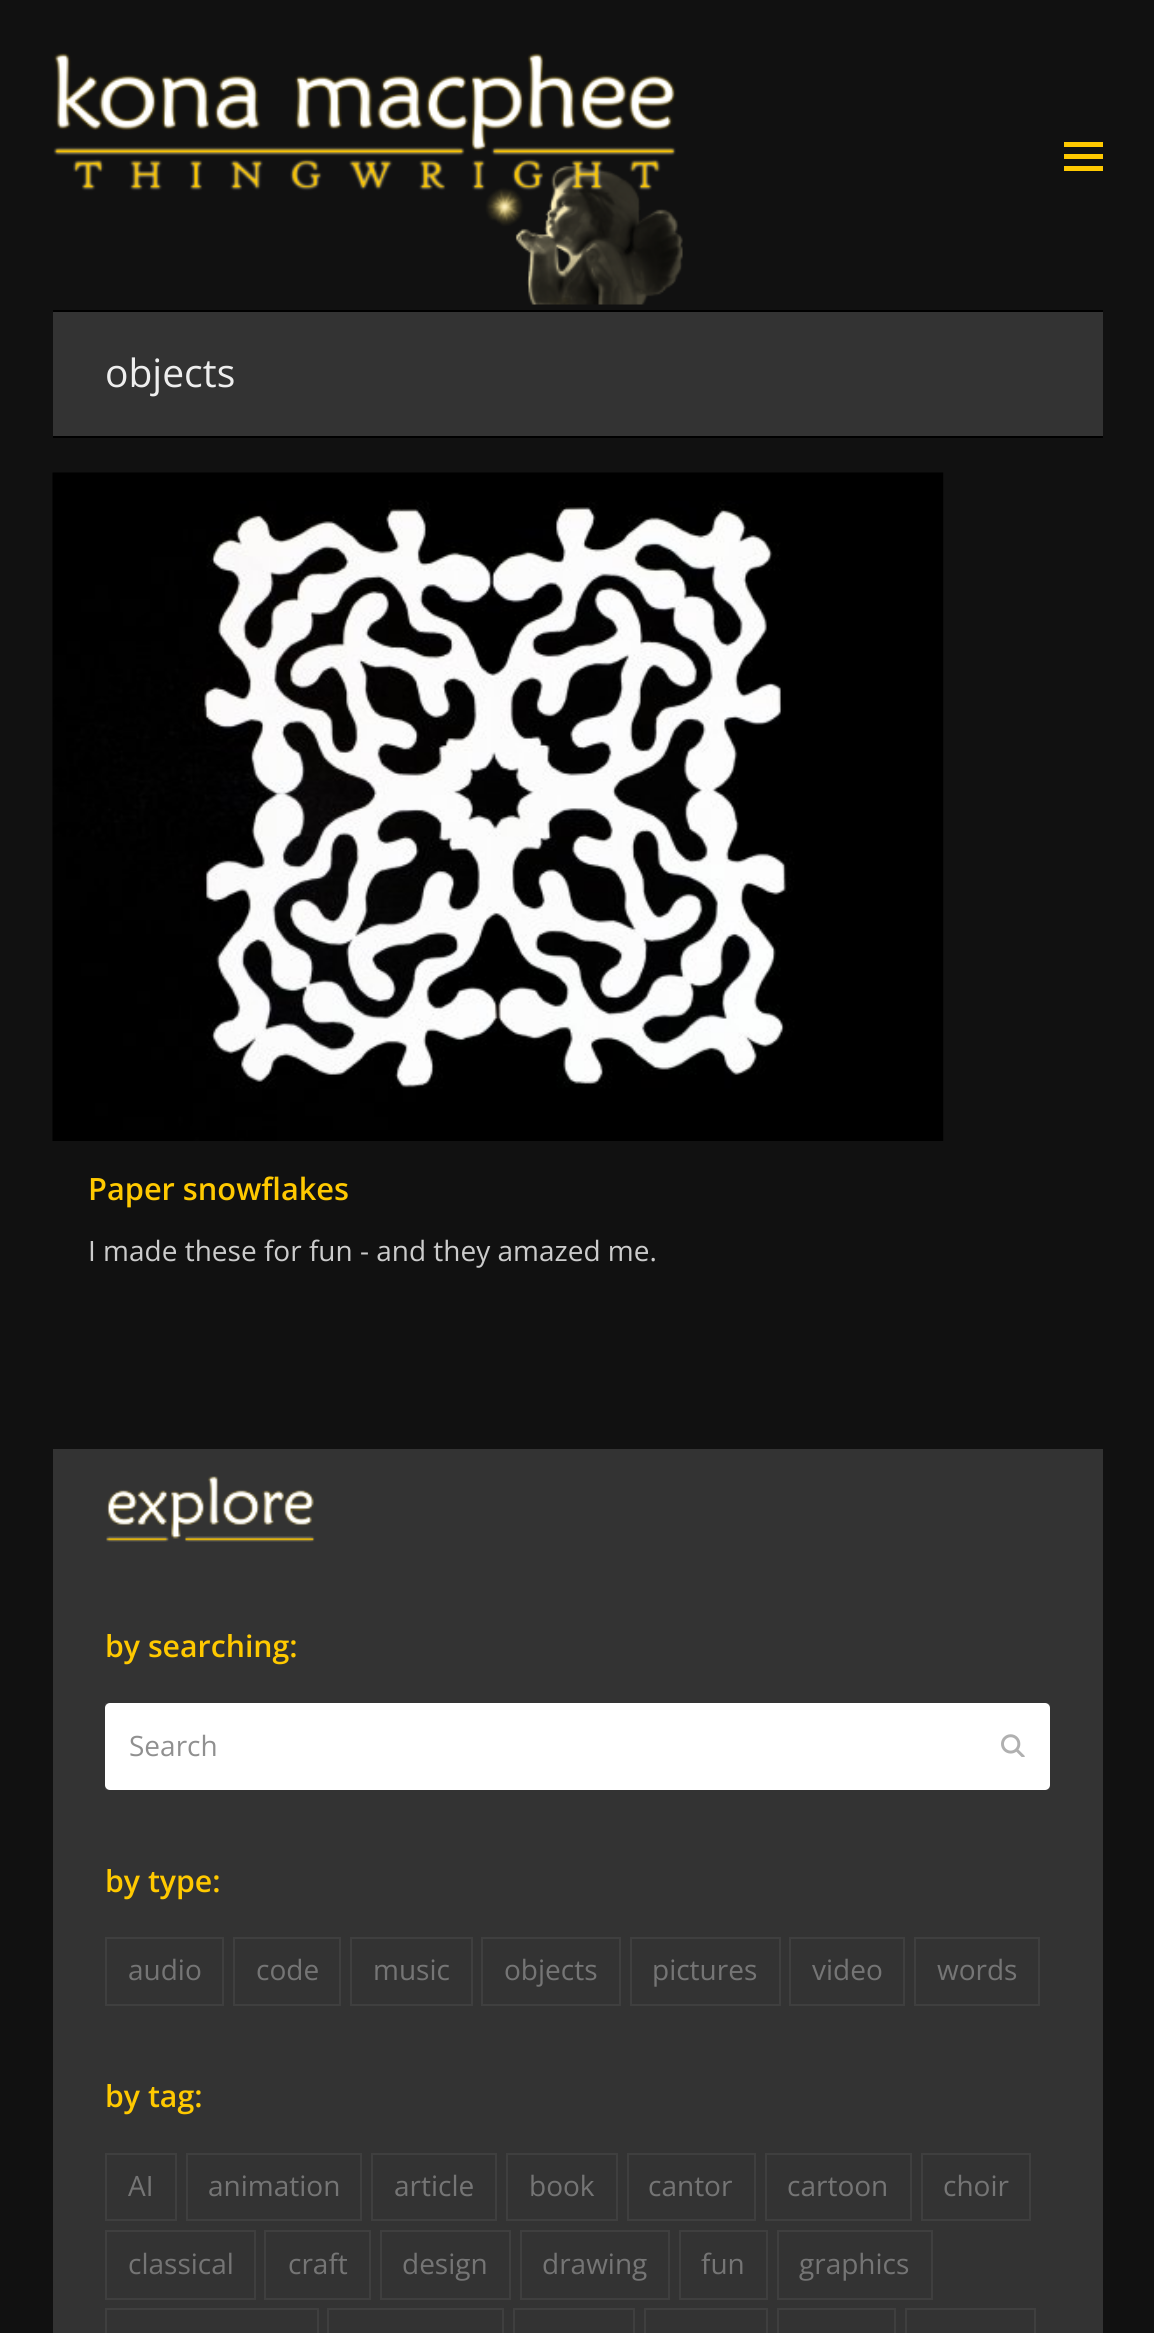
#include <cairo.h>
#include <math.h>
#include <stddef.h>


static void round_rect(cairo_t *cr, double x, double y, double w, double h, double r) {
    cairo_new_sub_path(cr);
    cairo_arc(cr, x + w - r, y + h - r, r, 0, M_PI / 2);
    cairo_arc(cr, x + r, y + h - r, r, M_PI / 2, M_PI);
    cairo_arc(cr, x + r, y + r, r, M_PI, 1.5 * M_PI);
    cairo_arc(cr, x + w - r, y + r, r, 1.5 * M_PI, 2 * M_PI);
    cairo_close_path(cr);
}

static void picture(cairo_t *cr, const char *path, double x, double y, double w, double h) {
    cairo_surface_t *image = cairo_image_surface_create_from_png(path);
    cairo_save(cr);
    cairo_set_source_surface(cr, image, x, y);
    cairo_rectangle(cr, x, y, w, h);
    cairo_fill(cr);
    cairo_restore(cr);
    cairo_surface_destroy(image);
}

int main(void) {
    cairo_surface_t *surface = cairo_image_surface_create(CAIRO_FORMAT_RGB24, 1154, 2333);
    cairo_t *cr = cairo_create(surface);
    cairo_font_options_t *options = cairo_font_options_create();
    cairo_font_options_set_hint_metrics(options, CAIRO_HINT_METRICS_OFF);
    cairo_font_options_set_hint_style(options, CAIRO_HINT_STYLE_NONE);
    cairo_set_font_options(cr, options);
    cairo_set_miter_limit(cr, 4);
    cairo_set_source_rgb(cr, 0.067, 0.067, 0.067);
    cairo_paint(cr);
    picture(cr, "img1.png", 53, 53, 630, 252);
    cairo_set_source_rgb(cr, 1, 0.788, 0);
    cairo_rectangle(cr, 1064, 154, 39, 5);
    cairo_fill(cr);
    cairo_rectangle(cr, 1064, 142, 39, 5);
    cairo_fill(cr);
    cairo_rectangle(cr, 1064, 166, 39, 5);
    cairo_fill(cr);
    cairo_set_source_rgb(cr, 0.2, 0.2, 0.2);
    cairo_rectangle(cr, 53, 312, 1050, 124);
    cairo_fill(cr);
    cairo_set_source_rgb(cr, 0, 0, 0);
    cairo_rectangle(cr, 53, 310, 1050, 2);
    cairo_fill(cr);
    cairo_rectangle(cr, 53, 436, 1050, 2);
    cairo_fill(cr);
    cairo_select_font_face(cr, "Open Sans", CAIRO_FONT_SLANT_NORMAL, CAIRO_FONT_WEIGHT_NORMAL);
    cairo_set_font_size(cr, 39);
    cairo_set_source_rgb(cr, 0.933, 0.933, 0.933);
    cairo_move_to(cr, 105, 387);
    cairo_show_text(cr, "objects");
    picture(cr, "img2.png", 52, 472, 892, 669);
    cairo_select_font_face(cr, "Open Sans SemiBold", CAIRO_FONT_SLANT_NORMAL, CAIRO_FONT_WEIGHT_NORMAL);
    cairo_set_font_size(cr, 30.75);
    cairo_set_source_rgb(cr, 1, 0.788, 0);
    cairo_move_to(cr, 88, 1200);
    cairo_show_text(cr, "Paper snowflakes");
    cairo_select_font_face(cr, "Open Sans", CAIRO_FONT_SLANT_NORMAL, CAIRO_FONT_WEIGHT_NORMAL);
    cairo_set_font_size(cr, 28);
    cairo_set_source_rgb(cr, 0.8, 0.8, 0.8);
    cairo_move_to(cr, 88, 1261);
    cairo_show_text(cr, "I made these for fun - and they amazed me.");
    cairo_set_source_rgb(cr, 0.2, 0.2, 0.2);
    cairo_rectangle(cr, 53, 1449, 1050, 884);
    cairo_fill(cr);
    picture(cr, "img3.png", 106, 1476, 209, 66);
    cairo_select_font_face(cr, "Open Sans SemiBold", CAIRO_FONT_SLANT_NORMAL, CAIRO_FONT_WEIGHT_NORMAL);
    cairo_set_font_size(cr, 30.25);
    cairo_set_source_rgb(cr, 1, 0.788, 0);
    cairo_move_to(cr, 105, 1657);
    cairo_show_text(cr, "by searching:");
    cairo_set_source_rgb(cr, 1, 1, 1);
    round_rect(cr, 105, 1703, 945, 87, 5);
    cairo_fill(cr);
    cairo_rectangle(cr, 106, 1704, 943, 85);
    cairo_set_source_rgba(cr, 1, 1, 1, 0.06);
    cairo_stroke(cr);
    cairo_select_font_face(cr, "Open Sans", CAIRO_FONT_SLANT_NORMAL, CAIRO_FONT_WEIGHT_NORMAL);
    cairo_set_font_size(cr, 28);
    cairo_set_source_rgb(cr, 0.565, 0.565, 0.565);
    cairo_move_to(cr, 129, 1756);
    cairo_show_text(cr, "Search");
    picture(cr, "img4.png", 1001, 1734, 24, 23);
    cairo_select_font_face(cr, "Open Sans SemiBold", CAIRO_FONT_SLANT_NORMAL, CAIRO_FONT_WEIGHT_NORMAL);
    cairo_set_font_size(cr, 30.25);
    cairo_set_source_rgb(cr, 1, 0.788, 0);
    cairo_move_to(cr, 105, 1892);
    cairo_show_text(cr, "by type:");
    cairo_rectangle(cr, 106, 1938, 117, 67);
    cairo_set_source_rgb(cr, 0.247, 0.247, 0.247);
    cairo_stroke(cr);
    cairo_select_font_face(cr, "Open Sans", CAIRO_FONT_SLANT_NORMAL, CAIRO_FONT_WEIGHT_NORMAL);
    cairo_set_font_size(cr, 28);
    cairo_set_source_rgb(cr, 0.459, 0.459, 0.459);
    cairo_move_to(cr, 128, 1980);
    cairo_show_text(cr, "audio");
    cairo_rectangle(cr, 234, 1938, 106, 67);
    cairo_set_source_rgb(cr, 0.247, 0.247, 0.247);
    cairo_stroke(cr);
    cairo_set_source_rgb(cr, 0.459, 0.459, 0.459);
    cairo_move_to(cr, 256, 1980);
    cairo_show_text(cr, "code");
    cairo_rectangle(cr, 351, 1938, 121, 67);
    cairo_set_source_rgb(cr, 0.247, 0.247, 0.247);
    cairo_stroke(cr);
    cairo_set_source_rgb(cr, 0.459, 0.459, 0.459);
    cairo_move_to(cr, 373, 1980);
    cairo_show_text(cr, "music");
    cairo_rectangle(cr, 482, 1938, 138, 67);
    cairo_set_source_rgb(cr, 0.247, 0.247, 0.247);
    cairo_stroke(cr);
    cairo_set_source_rgb(cr, 0.459, 0.459, 0.459);
    cairo_move_to(cr, 504, 1980);
    cairo_show_text(cr, "objects");
    cairo_rectangle(cr, 631, 1938, 149, 67);
    cairo_set_source_rgb(cr, 0.247, 0.247, 0.247);
    cairo_stroke(cr);
    cairo_set_source_rgb(cr, 0.459, 0.459, 0.459);
    cairo_move_to(cr, 652, 1980);
    cairo_show_text(cr, "pictures");
    cairo_rectangle(cr, 790, 1938, 114, 67);
    cairo_set_source_rgb(cr, 0.247, 0.247, 0.247);
    cairo_stroke(cr);
    cairo_set_source_rgb(cr, 0.459, 0.459, 0.459);
    cairo_move_to(cr, 812, 1980);
    cairo_show_text(cr, "video");
    cairo_rectangle(cr, 915, 1938, 124, 67);
    cairo_set_source_rgb(cr, 0.247, 0.247, 0.247);
    cairo_stroke(cr);
    cairo_set_source_rgb(cr, 0.459, 0.459, 0.459);
    cairo_move_to(cr, 937, 1980);
    cairo_show_text(cr, "words");
    cairo_select_font_face(cr, "Open Sans SemiBold", CAIRO_FONT_SLANT_NORMAL, CAIRO_FONT_WEIGHT_NORMAL);
    cairo_set_font_size(cr, 30.25);
    cairo_set_source_rgb(cr, 1, 0.788, 0);
    cairo_move_to(cr, 105, 2107);
    cairo_show_text(cr, "by tag:");
    cairo_rectangle(cr, 106, 2154, 70, 66);
    cairo_set_source_rgb(cr, 0.247, 0.247, 0.247);
    cairo_stroke(cr);
    cairo_select_font_face(cr, "Open Sans", CAIRO_FONT_SLANT_NORMAL, CAIRO_FONT_WEIGHT_NORMAL);
    cairo_set_font_size(cr, 28);
    cairo_set_source_rgb(cr, 0.459, 0.459, 0.459);
    cairo_move_to(cr, 128, 2196);
    cairo_show_text(cr, "AI");
    cairo_rectangle(cr, 187, 2154, 174, 66);
    cairo_set_source_rgb(cr, 0.247, 0.247, 0.247);
    cairo_stroke(cr);
    cairo_set_source_rgb(cr, 0.459, 0.459, 0.459);
    cairo_move_to(cr, 208, 2196);
    cairo_show_text(cr, "animation");
    cairo_rectangle(cr, 372, 2154, 124, 66);
    cairo_set_source_rgb(cr, 0.247, 0.247, 0.247);
    cairo_stroke(cr);
    cairo_set_source_rgb(cr, 0.459, 0.459, 0.459);
    cairo_move_to(cr, 394, 2196);
    cairo_show_text(cr, "article");
    cairo_rectangle(cr, 507, 2154, 110, 66);
    cairo_set_source_rgb(cr, 0.247, 0.247, 0.247);
    cairo_stroke(cr);
    cairo_set_source_rgb(cr, 0.459, 0.459, 0.459);
    cairo_move_to(cr, 529, 2196);
    cairo_show_text(cr, "book");
    cairo_rectangle(cr, 628, 2154, 127, 66);
    cairo_set_source_rgb(cr, 0.247, 0.247, 0.247);
    cairo_stroke(cr);
    cairo_set_source_rgb(cr, 0.459, 0.459, 0.459);
    cairo_move_to(cr, 648, 2196);
    cairo_show_text(cr, "cantor");
    cairo_rectangle(cr, 766, 2154, 145, 66);
    cairo_set_source_rgb(cr, 0.247, 0.247, 0.247);
    cairo_stroke(cr);
    cairo_set_source_rgb(cr, 0.459, 0.459, 0.459);
    cairo_move_to(cr, 787, 2196);
    cairo_show_text(cr, "cartoon");
    cairo_rectangle(cr, 922, 2154, 108, 66);
    cairo_set_source_rgb(cr, 0.247, 0.247, 0.247);
    cairo_stroke(cr);
    cairo_set_source_rgb(cr, 0.459, 0.459, 0.459);
    cairo_move_to(cr, 943, 2196);
    cairo_show_text(cr, "choir");
    cairo_rectangle(cr, 106, 2231, 149, 68);
    cairo_set_source_rgb(cr, 0.247, 0.247, 0.247);
    cairo_stroke(cr);
    cairo_set_source_rgb(cr, 0.459, 0.459, 0.459);
    cairo_move_to(cr, 128, 2274);
    cairo_show_text(cr, "classical");
    cairo_rectangle(cr, 265, 2231, 105, 68);
    cairo_set_source_rgb(cr, 0.247, 0.247, 0.247);
    cairo_stroke(cr);
    cairo_set_source_rgb(cr, 0.459, 0.459, 0.459);
    cairo_move_to(cr, 288, 2274);
    cairo_show_text(cr, "craft");
    cairo_rectangle(cr, 381, 2231, 129, 68);
    cairo_set_source_rgb(cr, 0.247, 0.247, 0.247);
    cairo_stroke(cr);
    cairo_set_source_rgb(cr, 0.459, 0.459, 0.459);
    cairo_move_to(cr, 402, 2274);
    cairo_show_text(cr, "design");
    cairo_rectangle(cr, 521, 2231, 148, 68);
    cairo_set_source_rgb(cr, 0.247, 0.247, 0.247);
    cairo_stroke(cr);
    cairo_set_source_rgb(cr, 0.459, 0.459, 0.459);
    cairo_move_to(cr, 542, 2274);
    cairo_show_text(cr, "drawing");
    cairo_rectangle(cr, 680, 2231, 87, 68);
    cairo_set_source_rgb(cr, 0.247, 0.247, 0.247);
    cairo_stroke(cr);
    cairo_set_source_rgb(cr, 0.459, 0.459, 0.459);
    cairo_move_to(cr, 701, 2274);
    cairo_show_text(cr, "fun");
    cairo_rectangle(cr, 778, 2231, 154, 68);
    cairo_set_source_rgb(cr, 0.247, 0.247, 0.247);
    cairo_stroke(cr);
    cairo_set_source_rgb(cr, 0.459, 0.459, 0.459);
    cairo_move_to(cr, 799, 2274);
    cairo_show_text(cr, "graphics");
    cairo_rectangle(cr, 106, 2309, 212, 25);
    cairo_set_source_rgb(cr, 0.247, 0.247, 0.247);
    cairo_stroke(cr);
    cairo_rectangle(cr, 328, 2309, 175, 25);
    cairo_stroke(cr);
    cairo_rectangle(cr, 514, 2309, 120, 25);
    cairo_stroke(cr);
    cairo_rectangle(cr, 645, 2309, 122, 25);
    cairo_stroke(cr);
    cairo_rectangle(cr, 778, 2309, 117, 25);
    cairo_stroke(cr);
    cairo_rectangle(cr, 906, 2309, 129, 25);
    cairo_stroke(cr);
    cairo_surface_write_to_png(surface, "page.png");
    cairo_font_options_destroy(options);
    cairo_destroy(cr);
    cairo_surface_destroy(surface);
    return 0;
}
